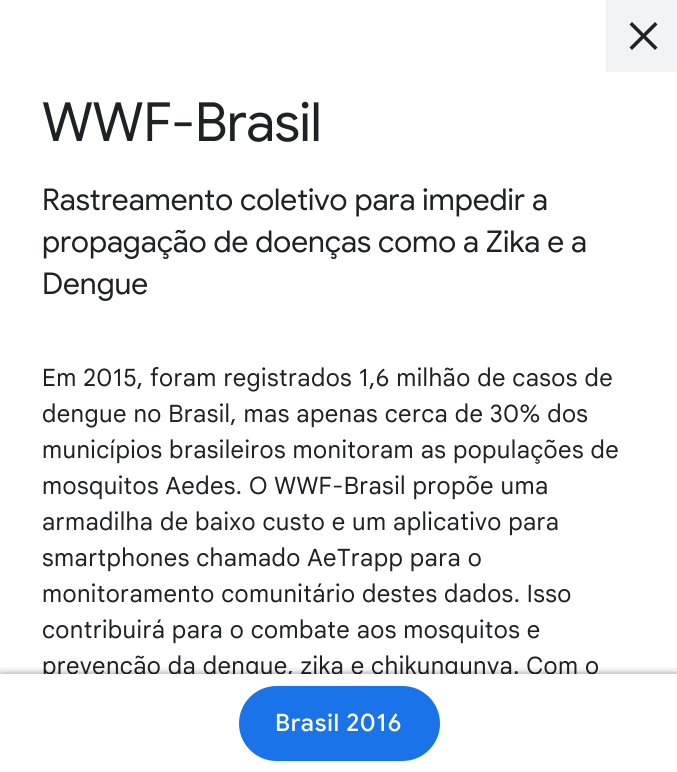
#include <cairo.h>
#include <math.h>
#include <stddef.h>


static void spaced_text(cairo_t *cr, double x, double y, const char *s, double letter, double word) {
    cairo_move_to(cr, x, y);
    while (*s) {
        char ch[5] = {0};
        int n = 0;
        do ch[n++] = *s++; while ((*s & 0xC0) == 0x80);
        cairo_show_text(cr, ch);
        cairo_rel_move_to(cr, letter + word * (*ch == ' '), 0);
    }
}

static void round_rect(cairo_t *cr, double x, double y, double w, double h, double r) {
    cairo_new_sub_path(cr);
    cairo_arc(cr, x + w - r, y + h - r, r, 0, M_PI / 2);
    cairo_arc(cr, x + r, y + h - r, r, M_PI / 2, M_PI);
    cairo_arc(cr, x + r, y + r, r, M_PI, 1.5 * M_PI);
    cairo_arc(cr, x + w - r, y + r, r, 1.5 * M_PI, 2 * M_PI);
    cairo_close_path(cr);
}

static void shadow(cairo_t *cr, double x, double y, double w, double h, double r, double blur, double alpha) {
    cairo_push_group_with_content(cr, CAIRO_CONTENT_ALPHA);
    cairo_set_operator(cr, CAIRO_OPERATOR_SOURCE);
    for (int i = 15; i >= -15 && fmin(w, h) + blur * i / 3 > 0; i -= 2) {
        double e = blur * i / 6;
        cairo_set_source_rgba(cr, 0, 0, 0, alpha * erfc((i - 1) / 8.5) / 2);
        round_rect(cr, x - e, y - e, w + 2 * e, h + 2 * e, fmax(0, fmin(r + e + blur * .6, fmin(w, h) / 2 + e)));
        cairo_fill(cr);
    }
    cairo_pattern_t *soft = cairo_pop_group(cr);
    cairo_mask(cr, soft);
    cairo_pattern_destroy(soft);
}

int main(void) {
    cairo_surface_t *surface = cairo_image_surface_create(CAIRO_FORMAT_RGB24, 677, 772);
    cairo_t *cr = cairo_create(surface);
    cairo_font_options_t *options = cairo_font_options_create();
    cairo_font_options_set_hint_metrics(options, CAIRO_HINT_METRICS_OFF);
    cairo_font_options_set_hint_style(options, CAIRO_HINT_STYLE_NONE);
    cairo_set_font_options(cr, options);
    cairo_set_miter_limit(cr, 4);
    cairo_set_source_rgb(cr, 1, 1, 1);
    cairo_paint(cr);
    cairo_set_source_rgb(cr, 0.945, 0.953, 0.957);
    cairo_rectangle(cr, 606, 0, 71, 72);
    cairo_fill(cr);
    cairo_set_source_rgb(cr, 0.125, 0.129, 0.141);
    cairo_new_path(cr);
    cairo_move_to(cr, 655, 22);
    cairo_line_to(cr, 657.5, 24.5);
    cairo_line_to(cr, 632, 50);
    cairo_line_to(cr, 629.5, 47.5);
    cairo_close_path(cr);
    cairo_fill(cr);
    cairo_new_path(cr);
    cairo_move_to(cr, 629.5, 24.5);
    cairo_line_to(cr, 632, 22);
    cairo_line_to(cr, 657.5, 47.5);
    cairo_line_to(cr, 655, 50);
    cairo_close_path(cr);
    cairo_fill(cr);
    cairo_select_font_face(cr, "Google Sans", CAIRO_FONT_SLANT_NORMAL, CAIRO_FONT_WEIGHT_NORMAL);
    cairo_set_font_size(cr, 54);
    spaced_text(cr, 42, 141, "WWF-Brasil", -0.4, 0);
    cairo_set_font_size(cr, 30);
    cairo_move_to(cr, 42, 210);
    cairo_show_text(cr, "Rastreamento coletivo para impedir a");
    cairo_move_to(cr, 42, 252);
    cairo_show_text(cr, "propagação de doenças como a Zika e a");
    cairo_move_to(cr, 42, 294);
    cairo_show_text(cr, "Dengue");
    cairo_select_font_face(cr, "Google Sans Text", CAIRO_FONT_SLANT_NORMAL, CAIRO_FONT_WEIGHT_NORMAL);
    cairo_set_font_size(cr, 24);
    spaced_text(cr, 42, 386, "Em 2015, foram registrados 1,6 milhão de casos de", 0.4, 0);
    spaced_text(cr, 42, 422, "dengue no Brasil, mas apenas cerca de 30% dos", 0.4, 0);
    spaced_text(cr, 42, 458, "municípios brasileiros monitoram as populações de", 0.4, 0);
    spaced_text(cr, 42, 494, "mosquitos Aedes. O WWF-Brasil propõe uma", 0.4, 0);
    spaced_text(cr, 42, 530, "armadilha de baixo custo e um aplicativo para", 0.4, 0);
    spaced_text(cr, 42, 566, "smartphones chamado AeTrapp para o", 0.4, 0);
    spaced_text(cr, 42, 602, "monitoramento comunitário destes dados. Isso", 0.4, 0);
    spaced_text(cr, 42, 638, "contribuirá para o combate aos mosquitos e", 0.4, 0);
    cairo_save(cr);
    cairo_rectangle(cr, 0, 0, 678, 674);
    cairo_clip(cr);
    spaced_text(cr, 42, 674, "prevenção da dengue, zika e chikungunya. Com o", 0.4, 0);
    cairo_restore(cr);
    cairo_save(cr);
    cairo_rectangle(cr, 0, 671, 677, 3);
    cairo_clip(cr);
    cairo_set_source_rgb(cr, 0, 0, 0);
    shadow(cr, 0, 672, 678, 99, 0, 1, 0.12);
    cairo_restore(cr);
    cairo_save(cr);
    cairo_rectangle(cr, 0, 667, 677, 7);
    cairo_clip(cr);
    cairo_set_source_rgb(cr, 0, 0, 0);
    shadow(cr, 0, 669, 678, 99, 0, 2, 0.1);
    cairo_restore(cr);
    cairo_set_source_rgb(cr, 0.102, 0.451, 0.91);
    round_rect(cr, 239, 686, 201, 75, 37.5);
    cairo_fill(cr);
    cairo_select_font_face(cr, "Google Sans Medium", CAIRO_FONT_SLANT_NORMAL, CAIRO_FONT_WEIGHT_NORMAL);
    cairo_set_source_rgb(cr, 1, 1, 1);
    spaced_text(cr, 275, 731, "Brasil 2016", 0.75, 0);
    cairo_surface_write_to_png(surface, "page.png");
    cairo_font_options_destroy(options);
    cairo_destroy(cr);
    cairo_surface_destroy(surface);
    return 0;
}
